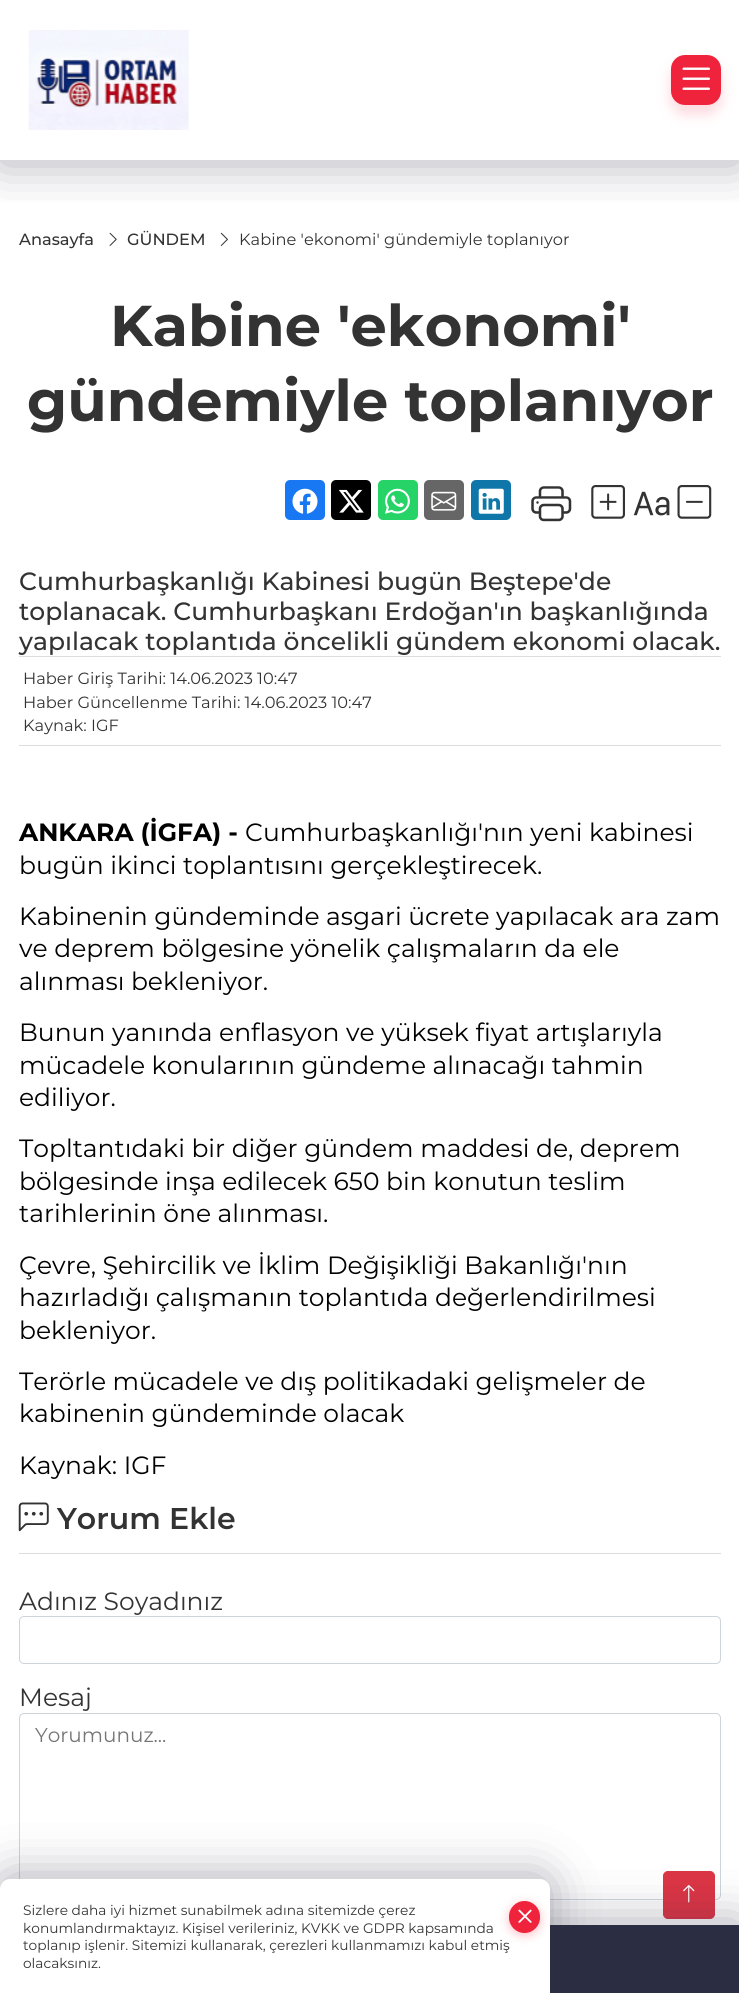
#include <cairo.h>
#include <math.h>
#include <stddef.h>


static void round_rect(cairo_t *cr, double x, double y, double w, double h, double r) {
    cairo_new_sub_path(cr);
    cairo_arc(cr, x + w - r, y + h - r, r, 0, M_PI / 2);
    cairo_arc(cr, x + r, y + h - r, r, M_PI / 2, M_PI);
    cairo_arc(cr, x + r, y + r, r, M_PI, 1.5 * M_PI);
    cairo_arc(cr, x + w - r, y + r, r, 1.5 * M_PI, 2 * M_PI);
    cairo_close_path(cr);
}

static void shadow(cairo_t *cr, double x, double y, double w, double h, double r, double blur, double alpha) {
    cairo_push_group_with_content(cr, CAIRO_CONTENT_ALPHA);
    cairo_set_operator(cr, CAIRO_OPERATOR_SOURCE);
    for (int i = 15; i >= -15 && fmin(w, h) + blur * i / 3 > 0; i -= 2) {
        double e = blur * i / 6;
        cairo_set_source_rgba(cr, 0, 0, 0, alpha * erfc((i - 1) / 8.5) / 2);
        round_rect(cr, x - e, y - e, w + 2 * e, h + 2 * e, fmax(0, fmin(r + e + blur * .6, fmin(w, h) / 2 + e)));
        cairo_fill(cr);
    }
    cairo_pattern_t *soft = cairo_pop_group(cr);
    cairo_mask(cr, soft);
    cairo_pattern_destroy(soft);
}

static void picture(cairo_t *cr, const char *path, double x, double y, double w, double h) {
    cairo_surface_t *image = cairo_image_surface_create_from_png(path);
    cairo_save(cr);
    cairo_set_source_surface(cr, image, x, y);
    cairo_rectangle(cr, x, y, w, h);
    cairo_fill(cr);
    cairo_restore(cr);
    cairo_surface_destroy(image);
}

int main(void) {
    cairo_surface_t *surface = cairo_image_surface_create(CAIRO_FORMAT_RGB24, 739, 1993);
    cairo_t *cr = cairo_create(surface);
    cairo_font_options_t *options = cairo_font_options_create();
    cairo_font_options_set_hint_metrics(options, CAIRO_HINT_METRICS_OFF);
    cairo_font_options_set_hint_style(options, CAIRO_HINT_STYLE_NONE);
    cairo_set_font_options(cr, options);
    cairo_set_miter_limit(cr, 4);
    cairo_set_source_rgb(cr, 1, 1, 1);
    cairo_paint(cr);
    picture(cr, "img3.png", 109, 232, 8, 14);
    picture(cr, "img4.png", 220, 232, 8, 14);
    cairo_save(cr);
    cairo_rectangle(cr, 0, 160, 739, 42);
    cairo_clip(cr);
    cairo_set_source_rgb(cr, 0.169, 0.176, 0.259);
    shadow(cr, 0, 4, 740, 160, 0, 24, 0.36);
    cairo_restore(cr);
    picture(cr, "img1.png", 28, 30, 161, 100);
    cairo_set_source_rgb(cr, 0.937, 0.137, 0.235);
    shadow(cr, 671, 64, 50, 50, 14, 7, 0.18);
    cairo_set_source_rgb(cr, 0.937, 0.137, 0.235);
    round_rect(cr, 671, 55, 50, 50, 14);
    cairo_fill(cr);
    picture(cr, "img2.png", 682, 67, 28, 23);
    cairo_select_font_face(cr, "Montserrat Medium", CAIRO_FONT_SLANT_NORMAL, CAIRO_FONT_WEIGHT_NORMAL);
    cairo_set_font_size(cr, 16.25);
    cairo_set_source_rgb(cr, 0.2, 0.2, 0.2);
    cairo_move_to(cr, 19, 245);
    cairo_show_text(cr, "Anasayfa");
    cairo_move_to(cr, 127, 245);
    cairo_show_text(cr, "GÜNDEM");
    cairo_select_font_face(cr, "Montserrat", CAIRO_FONT_SLANT_NORMAL, CAIRO_FONT_WEIGHT_NORMAL);
    cairo_move_to(cr, 239, 245);
    cairo_show_text(cr, "Kabine 'ekonomi' gündemiyle toplanıyor");
    cairo_select_font_face(cr, "Montserrat", CAIRO_FONT_SLANT_NORMAL, CAIRO_FONT_WEIGHT_BOLD);
    cairo_set_font_size(cr, 57.5);
    cairo_move_to(cr, 110, 346);
    cairo_show_text(cr, "Kabine 'ekonomi'");
    cairo_move_to(cr, 27, 421);
    cairo_show_text(cr, "gündemiyle toplanıyor");
    cairo_set_source_rgb(cr, 0.094, 0.467, 0.949);
    round_rect(cr, 285, 480, 40, 40, 5);
    cairo_fill(cr);
    picture(cr, "img5.png", 292, 488, 26, 26);
    cairo_set_source_rgb(cr, 0, 0, 0);
    round_rect(cr, 331, 480, 40, 40, 5);
    cairo_fill(cr);
    picture(cr, "img6.png", 339, 489, 25, 24);
    cairo_set_source_rgb(cr, 0.145, 0.827, 0.4);
    round_rect(cr, 378, 480, 40, 40, 5);
    cairo_fill(cr);
    picture(cr, "img7.png", 385, 488, 25, 26);
    cairo_set_source_rgb(cr, 0.4, 0.4, 0.4);
    round_rect(cr, 424, 480, 40, 40, 5);
    cairo_fill(cr);
    picture(cr, "img8.png", 431, 491, 26, 20);
    cairo_set_source_rgb(cr, 0.055, 0.463, 0.659);
    round_rect(cr, 471, 480, 40, 40, 5);
    cairo_fill(cr);
    picture(cr, "img9.png", 478, 488, 26, 26);
    picture(cr, "img10.png", 531, 486, 41, 36);
    picture(cr, "img11.png", 591, 485, 34, 34);
    picture(cr, "img12.png", 633, 491, 37, 25);
    picture(cr, "img13.png", 677, 485, 35, 34);
    cairo_select_font_face(cr, "Montserrat Medium", CAIRO_FONT_SLANT_NORMAL, CAIRO_FONT_WEIGHT_NORMAL);
    cairo_set_font_size(cr, 25);
    cairo_set_source_rgb(cr, 0.2, 0.2, 0.2);
    cairo_move_to(cr, 19, 590);
    cairo_show_text(cr, "Cumhurbaşkanlığı Kabinesi bugün Beştepe'de");
    cairo_move_to(cr, 19, 620);
    cairo_show_text(cr, "toplanacak. Cumhurbaşkanı Erdoğan'ın başkanlığında");
    cairo_move_to(cr, 19, 650);
    cairo_show_text(cr, "yapılacak toplantıda öncelikli gündem ekonomi olacak.");
    cairo_set_source_rgb(cr, 0.867, 0.867, 0.867);
    cairo_rectangle(cr, 19, 656, 702, 1);
    cairo_fill(cr);
    cairo_rectangle(cr, 19, 745, 702, 1);
    cairo_fill(cr);
    cairo_select_font_face(cr, "Montserrat", CAIRO_FONT_SLANT_NORMAL, CAIRO_FONT_WEIGHT_NORMAL);
    cairo_set_font_size(cr, 16.25);
    cairo_set_source_rgb(cr, 0.2, 0.2, 0.2);
    cairo_move_to(cr, 23, 684);
    cairo_show_text(cr, "Haber Giriş Tarihi: 14.06.2023 10:47");
    cairo_move_to(cr, 23, 708);
    cairo_show_text(cr, "Haber Güncellenme Tarihi: 14.06.2023 10:47");
    cairo_move_to(cr, 23, 731);
    cairo_show_text(cr, "Kaynak: IGF");
    cairo_select_font_face(cr, "Montserrat", CAIRO_FONT_SLANT_NORMAL, CAIRO_FONT_WEIGHT_BOLD);
    cairo_set_font_size(cr, 25);
    cairo_set_source_rgb(cr, 0, 0, 0);
    cairo_move_to(cr, 19, 841);
    cairo_show_text(cr, "ANKARA (İGFA) -");
    cairo_select_font_face(cr, "Montserrat", CAIRO_FONT_SLANT_NORMAL, CAIRO_FONT_WEIGHT_NORMAL);
    cairo_move_to(cr, 245, 841);
    cairo_show_text(cr, "Cumhurbaşkanlığı'nın yeni kabinesi");
    cairo_move_to(cr, 19, 874);
    cairo_show_text(cr, "bugün ikinci toplantısını gerçekleştirecek.");
    cairo_move_to(cr, 19, 925);
    cairo_show_text(cr, "Kabinenin gündeminde asgari ücrete yapılacak ara zam");
    cairo_move_to(cr, 19, 957);
    cairo_show_text(cr, "ve deprem bölgesine yönelik çalışmaların da ele");
    cairo_move_to(cr, 19, 990);
    cairo_show_text(cr, "alınması bekleniyor.");
    cairo_move_to(cr, 19, 1041);
    cairo_show_text(cr, "Bunun yanında enflasyon ve yüksek fiyat artışlarıyla");
    cairo_move_to(cr, 19, 1074);
    cairo_show_text(cr, "mücadele konularının gündeme alınacağı tahmin");
    cairo_move_to(cr, 19, 1106);
    cairo_show_text(cr, "ediliyor.");
    cairo_move_to(cr, 19, 1157);
    cairo_show_text(cr, "Topltantıdaki bir diğer gündem maddesi de, deprem");
    cairo_move_to(cr, 19, 1190);
    cairo_show_text(cr, "bölgesinde inşa edilecek 650 bin konutun teslim");
    cairo_move_to(cr, 19, 1222);
    cairo_show_text(cr, "tarihlerinin öne alınması.");
    cairo_move_to(cr, 19, 1274);
    cairo_show_text(cr, "Çevre, Şehircilik ve İklim Değişikliği Bakanlığı'nın");
    cairo_move_to(cr, 19, 1306);
    cairo_show_text(cr, "hazırladığı çalışmanın toplantıda değerlendirilmesi");
    cairo_move_to(cr, 19, 1339);
    cairo_show_text(cr, "bekleniyor.");
    cairo_move_to(cr, 19, 1390);
    cairo_show_text(cr, "Terörle mücadele ve dış politikadaki gelişmeler de");
    cairo_move_to(cr, 19, 1422);
    cairo_show_text(cr, "kabinenin gündeminde olacak");
    cairo_move_to(cr, 19, 1474);
    cairo_show_text(cr, "Kaynak: IGF");
    cairo_set_source_rgb(cr, 0.867, 0.867, 0.867);
    cairo_rectangle(cr, 19, 1553, 702, 1);
    cairo_fill(cr);
    picture(cr, "img14.png", 18, 1502, 31, 30);
    cairo_select_font_face(cr, "Montserrat SemiBold", CAIRO_FONT_SLANT_NORMAL, CAIRO_FONT_WEIGHT_NORMAL);
    cairo_set_font_size(cr, 30);
    cairo_set_source_rgb(cr, 0.2, 0.2, 0.2);
    cairo_move_to(cr, 57, 1529);
    cairo_show_text(cr, "Yorum Ekle");
    cairo_select_font_face(cr, "Montserrat", CAIRO_FONT_SLANT_NORMAL, CAIRO_FONT_WEIGHT_NORMAL);
    cairo_set_font_size(cr, 25);
    cairo_move_to(cr, 19, 1610);
    cairo_show_text(cr, "Adınız Soyadınız");
    round_rect(cr, 19.5, 1616.5, 701, 47, 4.5);
    cairo_set_source_rgb(cr, 0.808, 0.831, 0.855);
    cairo_set_line_width(cr, 1);
    cairo_stroke(cr);
    cairo_set_source_rgb(cr, 0.2, 0.2, 0.2);
    cairo_move_to(cr, 19, 1706);
    cairo_show_text(cr, "Mesaj");
    round_rect(cr, 19.5, 1713.5, 701, 186, 4.5);
    cairo_set_source_rgb(cr, 0.808, 0.831, 0.855);
    cairo_stroke(cr);
    cairo_set_font_size(cr, 20);
    cairo_set_source_rgb(cr, 0.459, 0.459, 0.459);
    cairo_move_to(cr, 35, 1742);
    cairo_show_text(cr, "Yorumunuz...");
    cairo_set_source_rgb(cr, 0.863, 0.208, 0.271);
    round_rect(cr, 663.5, 1871.5, 51, 47, 4.5);
    cairo_fill_preserve(cr);
    cairo_stroke(cr);
    picture(cr, "img15.png", 683, 1885, 12, 18);
    cairo_set_source_rgb(cr, 0.169, 0.176, 0.259);
    shadow(cr, 0, 1921, 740, 69, 0, 24, 0.36);
    cairo_set_source_rgb(cr, 0.169, 0.176, 0.259);
    cairo_rectangle(cr, 550, 1925, 189, 68);
    cairo_fill(cr);
    cairo_set_source_rgb(cr, 0.169, 0.176, 0.259);
    shadow(cr, 0, 1875, 550, 115, 10, 24, 0.36);
    cairo_set_source_rgb(cr, 1, 1, 1);
    cairo_new_path(cr);
    cairo_move_to(cr, 10, 1879);
    cairo_line_to(cr, 540, 1879);
    cairo_curve_to(cr, 545.5, 1879, 550, 1883.5, 550, 1889);
    cairo_line_to(cr, 550, 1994);
    cairo_line_to(cr, 0, 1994);
    cairo_line_to(cr, 0, 1889);
    cairo_curve_to(cr, 0, 1883.5, 4.5, 1879, 10, 1879);
    cairo_close_path(cr);
    cairo_fill(cr);
    cairo_set_font_size(cr, 13.75);
    cairo_set_source_rgb(cr, 0.2, 0.2, 0.2);
    cairo_move_to(cr, 23, 1915);
    cairo_show_text(cr, "Sizlere daha iyi hizmet sunabilmek adına sitemizde çerez");
    cairo_set_source_rgb(cr, 1, 0.337, 0.416);
    shadow(cr, 509, 1904, 31, 31, 15.5, 5, 0.38);
    cairo_set_source_rgb(cr, 0.937, 0.137, 0.235);
    round_rect(cr, 509, 1901, 31, 32, 15.5);
    cairo_fill(cr);
    picture(cr, "img16.png", 518, 1909, 14, 14);
    cairo_set_source_rgb(cr, 0.2, 0.2, 0.2);
    cairo_move_to(cr, 23, 1933);
    cairo_show_text(cr, "konumlandırmaktayız. Kişisel verileriniz, KVKK ve GDPR kapsamında");
    cairo_move_to(cr, 23, 1950);
    cairo_show_text(cr, "toplanıp işlenir. Sitemizi kullanarak, çerezleri kullanmamızı kabul etmiş");
    cairo_move_to(cr, 23, 1968);
    cairo_show_text(cr, "olacaksınız.");
    cairo_surface_write_to_png(surface, "page.png");
    cairo_font_options_destroy(options);
    cairo_destroy(cr);
    cairo_surface_destroy(surface);
    return 0;
}
